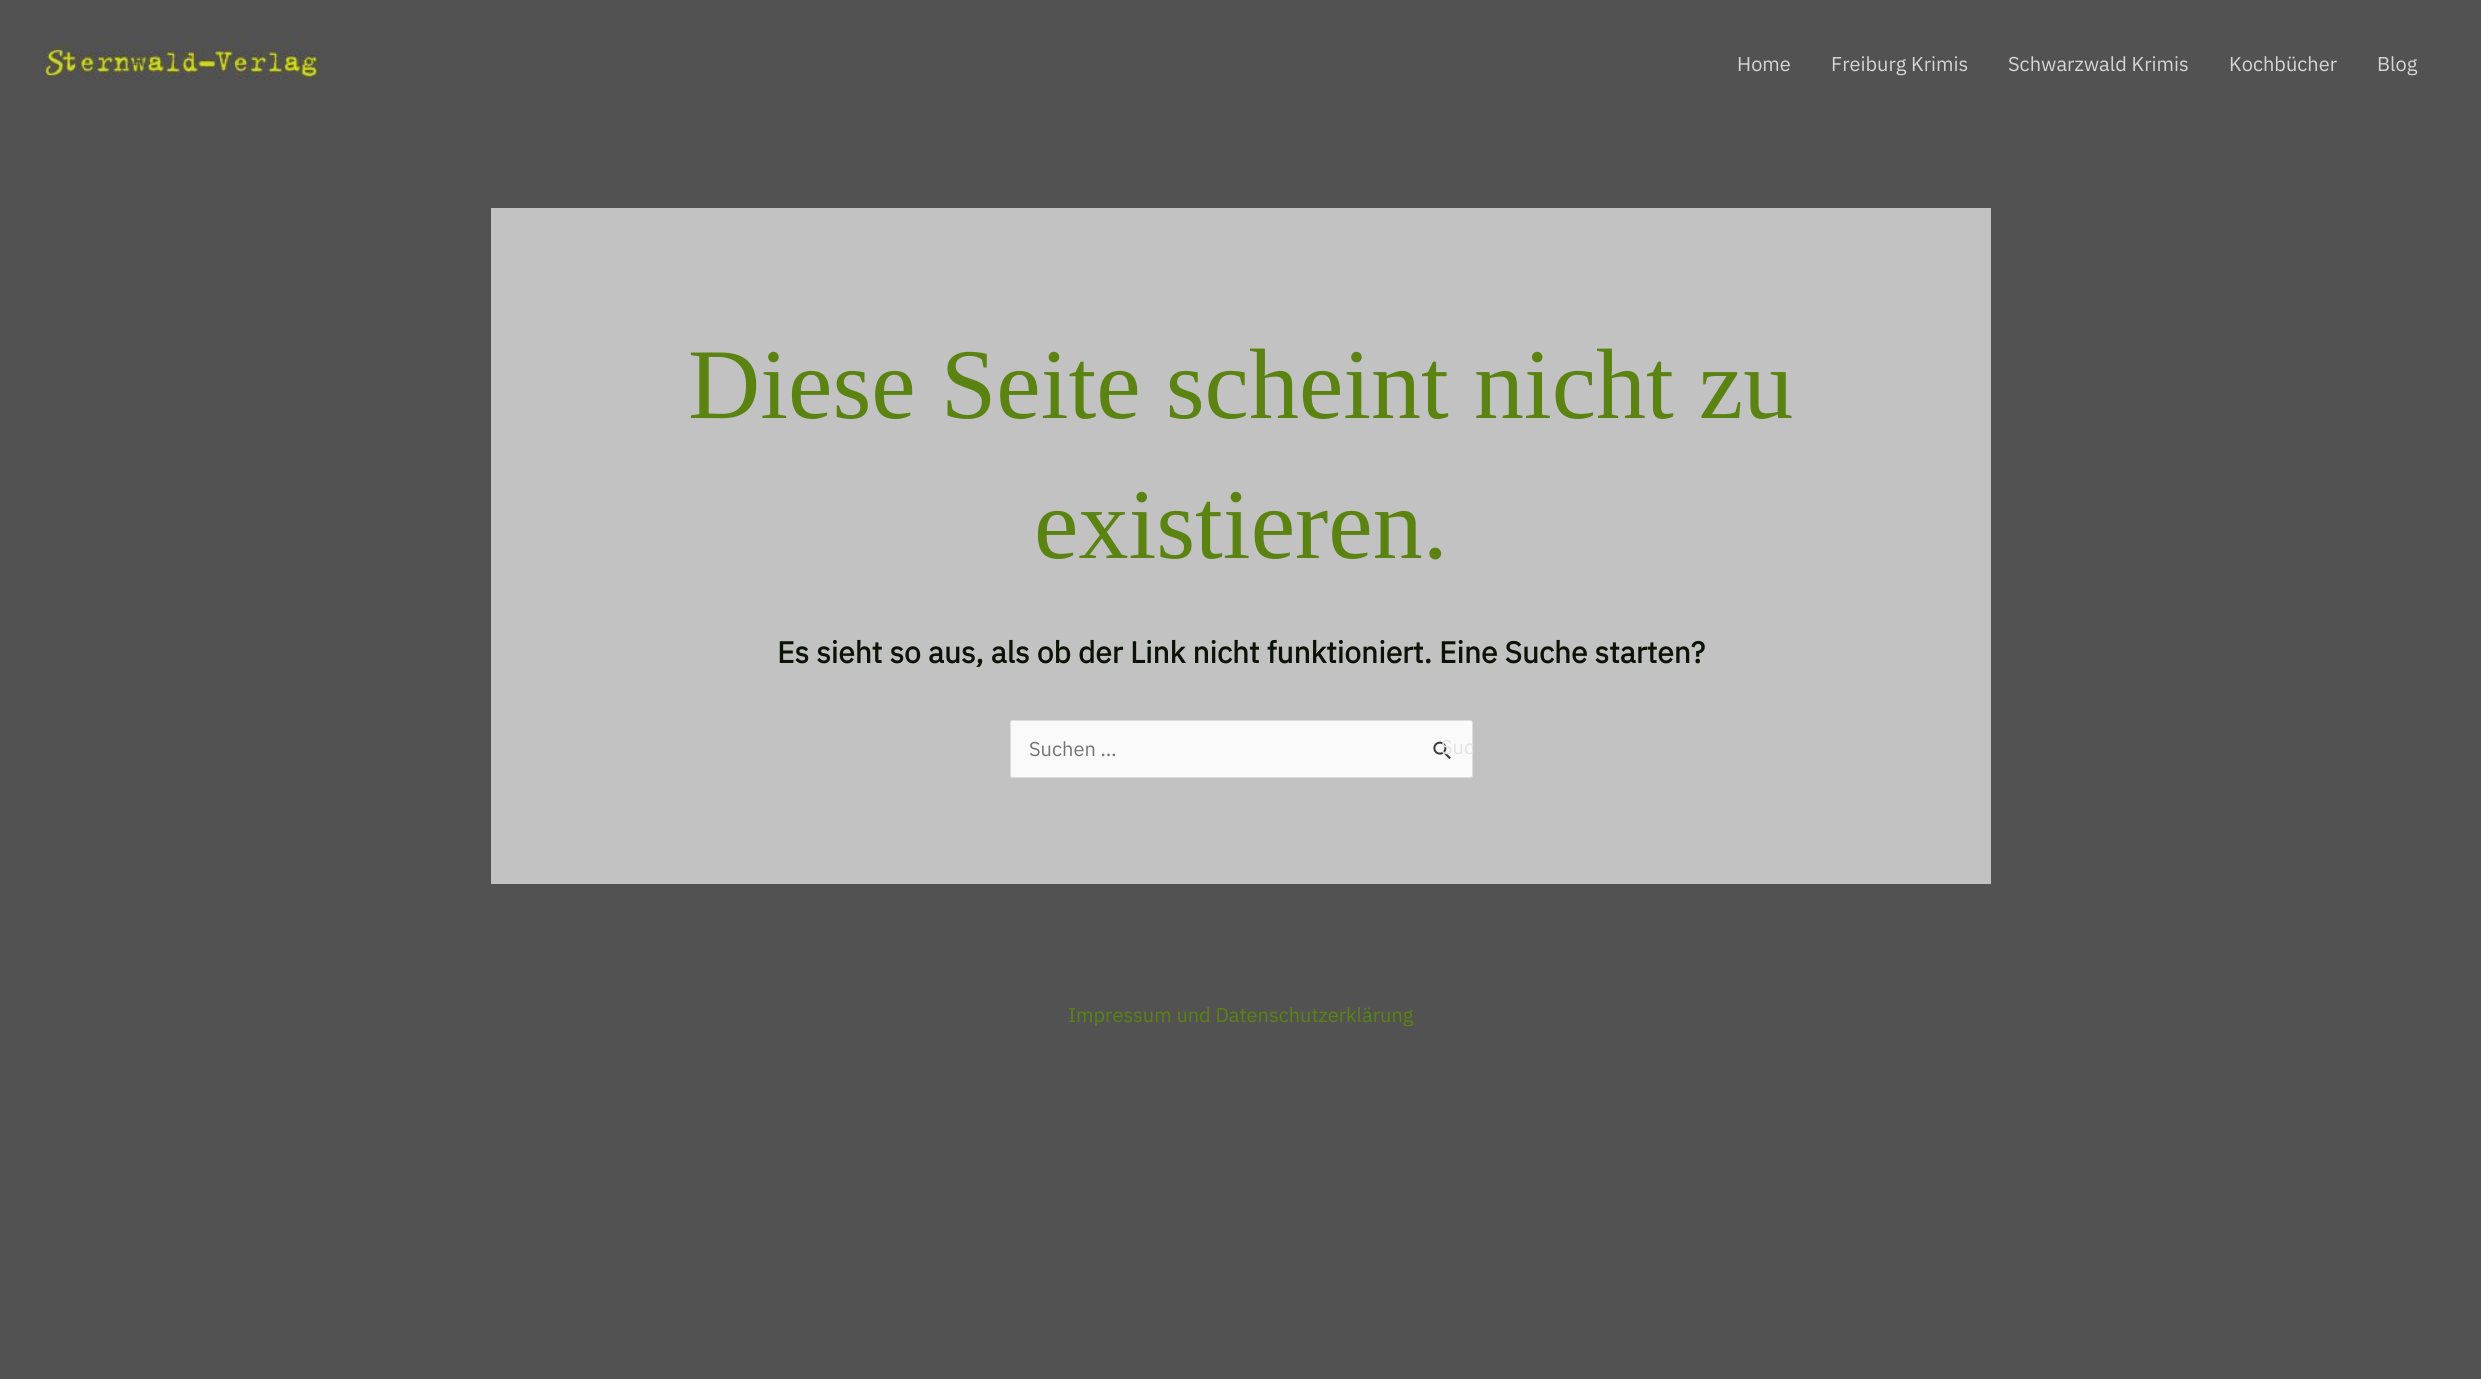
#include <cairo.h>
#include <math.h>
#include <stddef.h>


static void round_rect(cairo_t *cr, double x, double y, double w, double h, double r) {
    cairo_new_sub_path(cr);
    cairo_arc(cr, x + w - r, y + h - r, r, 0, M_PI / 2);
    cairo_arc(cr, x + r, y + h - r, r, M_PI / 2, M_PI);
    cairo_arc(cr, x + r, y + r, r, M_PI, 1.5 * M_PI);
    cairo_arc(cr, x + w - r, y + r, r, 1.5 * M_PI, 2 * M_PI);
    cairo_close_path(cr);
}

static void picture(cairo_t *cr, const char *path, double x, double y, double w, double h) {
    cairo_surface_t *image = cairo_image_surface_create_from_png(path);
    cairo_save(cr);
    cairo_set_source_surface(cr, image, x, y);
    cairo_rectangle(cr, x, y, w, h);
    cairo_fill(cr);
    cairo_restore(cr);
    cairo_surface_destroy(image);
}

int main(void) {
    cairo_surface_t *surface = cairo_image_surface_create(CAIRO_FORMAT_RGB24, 2481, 1379);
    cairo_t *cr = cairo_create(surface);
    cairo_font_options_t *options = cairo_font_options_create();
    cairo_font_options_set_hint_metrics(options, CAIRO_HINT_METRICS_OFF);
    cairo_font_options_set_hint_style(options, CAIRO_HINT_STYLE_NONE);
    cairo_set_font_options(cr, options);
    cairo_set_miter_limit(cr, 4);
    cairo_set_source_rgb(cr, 0.322, 0.322, 0.322);
    cairo_paint(cr);
    picture(cr, "img1.png", 43, 40, 276, 41);
    cairo_select_font_face(cr, "IBM Plex Sans", CAIRO_FONT_SLANT_NORMAL, CAIRO_FONT_WEIGHT_NORMAL);
    cairo_set_font_size(cr, 20);
    cairo_set_source_rgb(cr, 0.835, 0.835, 0.835);
    cairo_move_to(cr, 1737, 71);
    cairo_show_text(cr, "Home");
    cairo_move_to(cr, 1831, 71);
    cairo_show_text(cr, "Freiburg Krimis");
    cairo_move_to(cr, 2008, 71);
    cairo_show_text(cr, "Schwarzwald Krimis");
    cairo_move_to(cr, 2229, 71);
    cairo_show_text(cr, "Kochbücher");
    cairo_move_to(cr, 2377, 71);
    cairo_show_text(cr, "Blog");
    cairo_set_source_rgb(cr, 0.761, 0.761, 0.761);
    cairo_rectangle(cr, 491, 208, 1500, 676);
    cairo_fill(cr);
    cairo_select_font_face(cr, "Liberation Serif", CAIRO_FONT_SLANT_NORMAL, CAIRO_FONT_WEIGHT_NORMAL);
    cairo_set_font_size(cr, 100);
    cairo_set_source_rgb(cr, 0.357, 0.514, 0.067);
    cairo_move_to(cr, 688, 418);
    cairo_show_text(cr, "Diese Seite scheint nicht zu");
    cairo_move_to(cr, 1034, 558);
    cairo_show_text(cr, "existieren.");
    cairo_select_font_face(cr, "IBM Plex Sans", CAIRO_FONT_SLANT_NORMAL, CAIRO_FONT_WEIGHT_BOLD);
    cairo_set_font_size(cr, 30);
    cairo_set_source_rgb(cr, 0.047, 0.078, 0.024);
    cairo_move_to(cr, 777, 663);
    cairo_show_text(cr, "Es sieht so aus, als ob der Link nicht funktioniert. Eine Suche starten?");
    cairo_set_source_rgb(cr, 0.98, 0.98, 0.98);
    round_rect(cr, 1010.5, 720.5, 462, 57, 2);
    cairo_fill_preserve(cr);
    cairo_set_source_rgb(cr, 0.867, 0.867, 0.867);
    cairo_set_line_width(cr, 1);
    cairo_stroke(cr);
    cairo_select_font_face(cr, "IBM Plex Sans", CAIRO_FONT_SLANT_NORMAL, CAIRO_FONT_WEIGHT_NORMAL);
    cairo_set_font_size(cr, 20);
    cairo_set_source_rgb(cr, 0.459, 0.459, 0.459);
    cairo_move_to(cr, 1029, 756);
    cairo_show_text(cr, "Suchen …");
    picture(cr, "img2.png", 1433, 741, 18, 18);
    cairo_set_source_rgb(cr, 0.89, 0.89, 0.89);
    cairo_move_to(cr, 1441, 754);
    cairo_show_text(cr, "Suc");
    cairo_set_source_rgb(cr, 0.357, 0.514, 0.067);
    cairo_move_to(cr, 1068, 1022);
    cairo_show_text(cr, "Impressum und Datenschutzerklärung");
    cairo_surface_write_to_png(surface, "page.png");
    cairo_font_options_destroy(options);
    cairo_destroy(cr);
    cairo_surface_destroy(surface);
    return 0;
}
